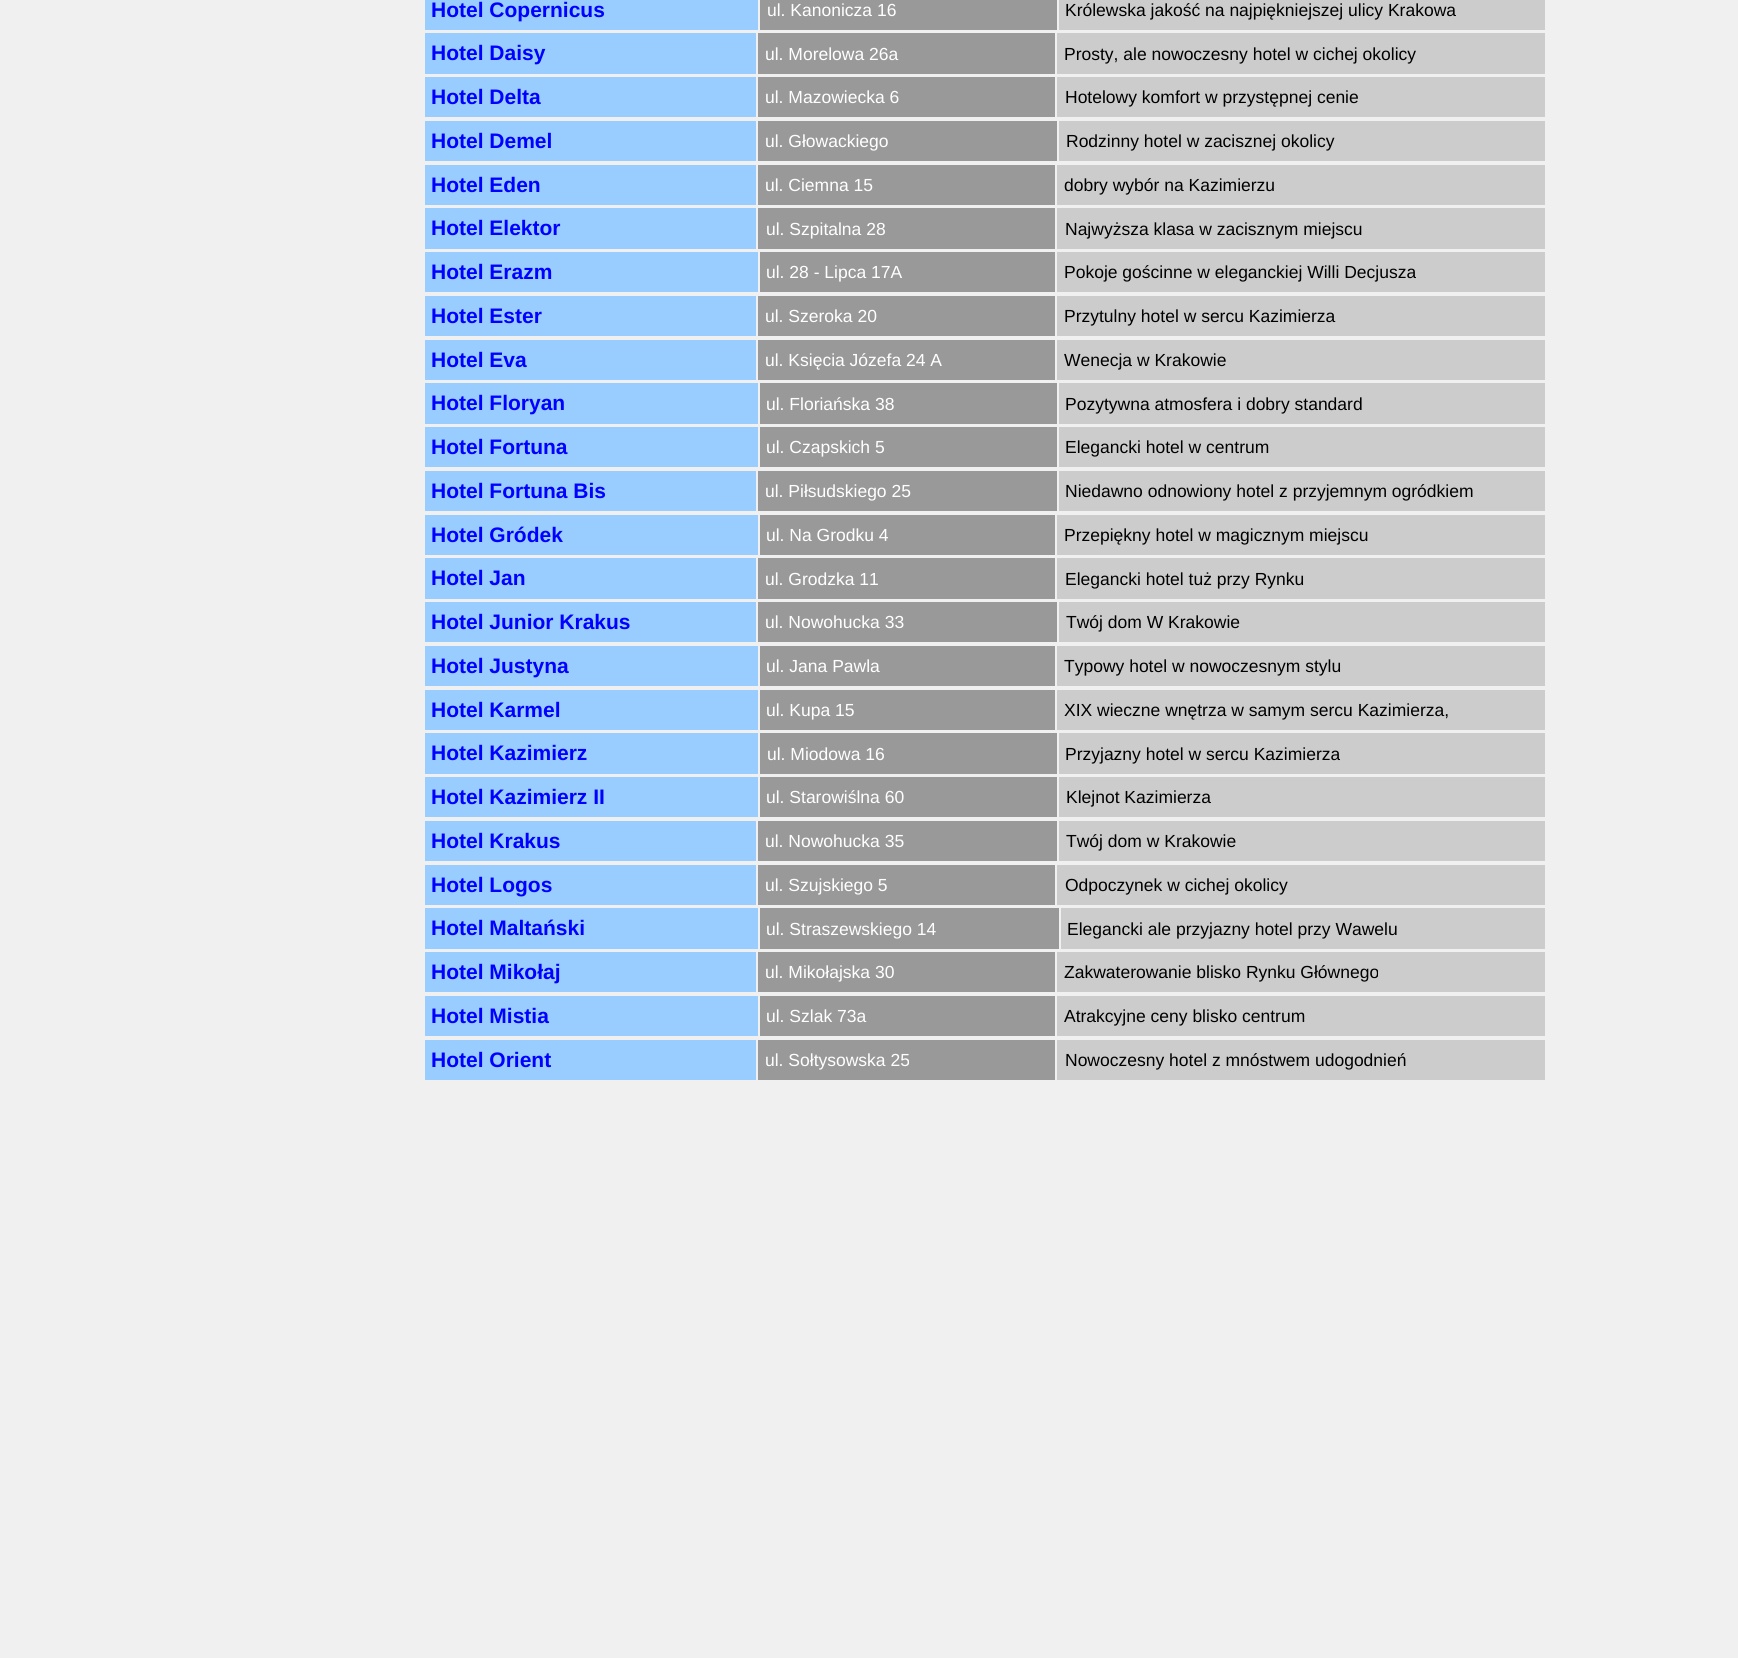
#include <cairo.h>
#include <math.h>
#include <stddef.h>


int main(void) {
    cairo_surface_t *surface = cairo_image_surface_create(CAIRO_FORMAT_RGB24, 1738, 1658);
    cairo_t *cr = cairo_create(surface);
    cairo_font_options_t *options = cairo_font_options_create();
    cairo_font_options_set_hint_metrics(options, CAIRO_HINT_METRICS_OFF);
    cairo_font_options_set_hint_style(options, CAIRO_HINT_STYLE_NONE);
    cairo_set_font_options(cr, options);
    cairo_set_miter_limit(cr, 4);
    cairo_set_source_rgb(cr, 0.941, 0.941, 0.941);
    cairo_paint(cr);
    cairo_set_source_rgb(cr, 0.6, 0.8, 1);
    cairo_rectangle(cr, 425, 0, 333, 30);
    cairo_fill(cr);
    cairo_select_font_face(cr, "Liberation Sans", CAIRO_FONT_SLANT_NORMAL, CAIRO_FONT_WEIGHT_BOLD);
    cairo_set_font_size(cr, 21);
    cairo_set_source_rgb(cr, 0, 0, 1);
    cairo_move_to(cr, 431, 17);
    cairo_show_text(cr, "Hotel Copernicus");
    cairo_set_source_rgb(cr, 0.6, 0.6, 0.6);
    cairo_rectangle(cr, 760, 0, 297, 30);
    cairo_fill(cr);
    cairo_select_font_face(cr, "Liberation Sans", CAIRO_FONT_SLANT_NORMAL, CAIRO_FONT_WEIGHT_NORMAL);
    cairo_set_font_size(cr, 17.5);
    cairo_set_source_rgb(cr, 1, 1, 1);
    cairo_move_to(cr, 767, 16);
    cairo_show_text(cr, "ul. Kanonicza 16");
    cairo_set_source_rgb(cr, 0.8, 0.8, 0.8);
    cairo_rectangle(cr, 1059, 0, 486, 30);
    cairo_fill(cr);
    cairo_set_source_rgb(cr, 0, 0, 0);
    cairo_move_to(cr, 1065, 16);
    cairo_show_text(cr, "Królewska jakość na najpiękniejszej ulicy Krakowa");
    cairo_set_source_rgb(cr, 0.6, 0.8, 1);
    cairo_rectangle(cr, 425, 33, 331, 41);
    cairo_fill(cr);
    cairo_select_font_face(cr, "Liberation Sans", CAIRO_FONT_SLANT_NORMAL, CAIRO_FONT_WEIGHT_BOLD);
    cairo_set_font_size(cr, 21);
    cairo_set_source_rgb(cr, 0, 0, 1);
    cairo_move_to(cr, 431, 60);
    cairo_show_text(cr, "Hotel Daisy");
    cairo_set_source_rgb(cr, 0.6, 0.6, 0.6);
    cairo_rectangle(cr, 758, 33, 297, 41);
    cairo_fill(cr);
    cairo_select_font_face(cr, "Liberation Sans", CAIRO_FONT_SLANT_NORMAL, CAIRO_FONT_WEIGHT_NORMAL);
    cairo_set_font_size(cr, 17.5);
    cairo_set_source_rgb(cr, 1, 1, 1);
    cairo_move_to(cr, 765, 60);
    cairo_show_text(cr, "ul. Morelowa 26a");
    cairo_set_source_rgb(cr, 0.8, 0.8, 0.8);
    cairo_rectangle(cr, 1057, 33, 488, 41);
    cairo_fill(cr);
    cairo_set_source_rgb(cr, 0, 0, 0);
    cairo_move_to(cr, 1064, 60);
    cairo_show_text(cr, "Prosty, ale nowoczesny hotel w cichej okolicy");
    cairo_set_source_rgb(cr, 0.6, 0.8, 1);
    cairo_rectangle(cr, 425, 77, 331, 40);
    cairo_fill(cr);
    cairo_select_font_face(cr, "Liberation Sans", CAIRO_FONT_SLANT_NORMAL, CAIRO_FONT_WEIGHT_BOLD);
    cairo_set_font_size(cr, 21);
    cairo_set_source_rgb(cr, 0, 0, 1);
    cairo_move_to(cr, 431, 104);
    cairo_show_text(cr, "Hotel Delta");
    cairo_set_source_rgb(cr, 0.6, 0.6, 0.6);
    cairo_rectangle(cr, 758, 77, 297, 40);
    cairo_fill(cr);
    cairo_select_font_face(cr, "Liberation Sans", CAIRO_FONT_SLANT_NORMAL, CAIRO_FONT_WEIGHT_NORMAL);
    cairo_set_font_size(cr, 17.5);
    cairo_set_source_rgb(cr, 1, 1, 1);
    cairo_move_to(cr, 765, 103);
    cairo_show_text(cr, "ul. Mazowiecka 6");
    cairo_set_source_rgb(cr, 0.8, 0.8, 0.8);
    cairo_rectangle(cr, 1057, 77, 488, 40);
    cairo_fill(cr);
    cairo_set_source_rgb(cr, 0, 0, 0);
    cairo_move_to(cr, 1065, 103);
    cairo_show_text(cr, "Hotelowy komfort w przystępnej cenie");
    cairo_set_source_rgb(cr, 0.6, 0.8, 1);
    cairo_rectangle(cr, 425, 121, 331, 40);
    cairo_fill(cr);
    cairo_select_font_face(cr, "Liberation Sans", CAIRO_FONT_SLANT_NORMAL, CAIRO_FONT_WEIGHT_BOLD);
    cairo_set_font_size(cr, 21);
    cairo_set_source_rgb(cr, 0, 0, 1);
    cairo_move_to(cr, 431, 148);
    cairo_show_text(cr, "Hotel Demel");
    cairo_set_source_rgb(cr, 0.6, 0.6, 0.6);
    cairo_rectangle(cr, 758, 121, 299, 40);
    cairo_fill(cr);
    cairo_select_font_face(cr, "Liberation Sans", CAIRO_FONT_SLANT_NORMAL, CAIRO_FONT_WEIGHT_NORMAL);
    cairo_set_font_size(cr, 17.5);
    cairo_set_source_rgb(cr, 1, 1, 1);
    cairo_move_to(cr, 765, 147);
    cairo_show_text(cr, "ul. Głowackiego");
    cairo_set_source_rgb(cr, 0.8, 0.8, 0.8);
    cairo_rectangle(cr, 1059, 121, 486, 40);
    cairo_fill(cr);
    cairo_set_source_rgb(cr, 0, 0, 0);
    cairo_move_to(cr, 1066, 147);
    cairo_show_text(cr, "Rodzinny hotel w zacisznej okolicy");
    cairo_set_source_rgb(cr, 0.6, 0.8, 1);
    cairo_rectangle(cr, 425, 165, 331, 40);
    cairo_fill(cr);
    cairo_select_font_face(cr, "Liberation Sans", CAIRO_FONT_SLANT_NORMAL, CAIRO_FONT_WEIGHT_BOLD);
    cairo_set_font_size(cr, 21);
    cairo_set_source_rgb(cr, 0, 0, 1);
    cairo_move_to(cr, 431, 192);
    cairo_show_text(cr, "Hotel Eden");
    cairo_set_source_rgb(cr, 0.6, 0.6, 0.6);
    cairo_rectangle(cr, 758, 165, 297, 40);
    cairo_fill(cr);
    cairo_select_font_face(cr, "Liberation Sans", CAIRO_FONT_SLANT_NORMAL, CAIRO_FONT_WEIGHT_NORMAL);
    cairo_set_font_size(cr, 17.5);
    cairo_set_source_rgb(cr, 1, 1, 1);
    cairo_move_to(cr, 765, 191);
    cairo_show_text(cr, "ul. Ciemna 15");
    cairo_set_source_rgb(cr, 0.8, 0.8, 0.8);
    cairo_rectangle(cr, 1057, 165, 488, 40);
    cairo_fill(cr);
    cairo_set_source_rgb(cr, 0, 0, 0);
    cairo_move_to(cr, 1064, 191);
    cairo_show_text(cr, "dobry wybór na Kazimierzu");
    cairo_set_source_rgb(cr, 0.6, 0.8, 1);
    cairo_rectangle(cr, 425, 208, 331, 41);
    cairo_fill(cr);
    cairo_select_font_face(cr, "Liberation Sans", CAIRO_FONT_SLANT_NORMAL, CAIRO_FONT_WEIGHT_BOLD);
    cairo_set_font_size(cr, 21);
    cairo_set_source_rgb(cr, 0, 0, 1);
    cairo_move_to(cr, 431, 235);
    cairo_show_text(cr, "Hotel Elektor");
    cairo_set_source_rgb(cr, 0.6, 0.6, 0.6);
    cairo_rectangle(cr, 758, 208, 297, 41);
    cairo_fill(cr);
    cairo_select_font_face(cr, "Liberation Sans", CAIRO_FONT_SLANT_NORMAL, CAIRO_FONT_WEIGHT_NORMAL);
    cairo_set_font_size(cr, 17.5);
    cairo_set_source_rgb(cr, 1, 1, 1);
    cairo_move_to(cr, 766, 235);
    cairo_show_text(cr, "ul. Szpitalna 28");
    cairo_set_source_rgb(cr, 0.8, 0.8, 0.8);
    cairo_rectangle(cr, 1057, 208, 488, 41);
    cairo_fill(cr);
    cairo_set_source_rgb(cr, 0, 0, 0);
    cairo_move_to(cr, 1065, 235);
    cairo_show_text(cr, "Najwyższa klasa w zacisznym miejscu");
    cairo_set_source_rgb(cr, 0.6, 0.8, 1);
    cairo_rectangle(cr, 425, 252, 333, 40);
    cairo_fill(cr);
    cairo_select_font_face(cr, "Liberation Sans", CAIRO_FONT_SLANT_NORMAL, CAIRO_FONT_WEIGHT_BOLD);
    cairo_set_font_size(cr, 21);
    cairo_set_source_rgb(cr, 0, 0, 1);
    cairo_move_to(cr, 431, 279);
    cairo_show_text(cr, "Hotel Erazm");
    cairo_set_source_rgb(cr, 0.6, 0.6, 0.6);
    cairo_rectangle(cr, 760, 252, 295, 40);
    cairo_fill(cr);
    cairo_select_font_face(cr, "Liberation Sans", CAIRO_FONT_SLANT_NORMAL, CAIRO_FONT_WEIGHT_NORMAL);
    cairo_set_font_size(cr, 17.5);
    cairo_set_source_rgb(cr, 1, 1, 1);
    cairo_move_to(cr, 766, 278);
    cairo_show_text(cr, "ul. 28 - Lipca 17A");
    cairo_set_source_rgb(cr, 0.8, 0.8, 0.8);
    cairo_rectangle(cr, 1057, 252, 488, 40);
    cairo_fill(cr);
    cairo_set_source_rgb(cr, 0, 0, 0);
    cairo_move_to(cr, 1064, 278);
    cairo_show_text(cr, "Pokoje gościnne w eleganckiej Willi Decjusza");
    cairo_set_source_rgb(cr, 0.6, 0.8, 1);
    cairo_rectangle(cr, 425, 296, 331, 40);
    cairo_fill(cr);
    cairo_select_font_face(cr, "Liberation Sans", CAIRO_FONT_SLANT_NORMAL, CAIRO_FONT_WEIGHT_BOLD);
    cairo_set_font_size(cr, 21);
    cairo_set_source_rgb(cr, 0, 0, 1);
    cairo_move_to(cr, 431, 323);
    cairo_show_text(cr, "Hotel Ester");
    cairo_set_source_rgb(cr, 0.6, 0.6, 0.6);
    cairo_rectangle(cr, 758, 296, 297, 40);
    cairo_fill(cr);
    cairo_select_font_face(cr, "Liberation Sans", CAIRO_FONT_SLANT_NORMAL, CAIRO_FONT_WEIGHT_NORMAL);
    cairo_set_font_size(cr, 17.5);
    cairo_set_source_rgb(cr, 1, 1, 1);
    cairo_move_to(cr, 765, 322);
    cairo_show_text(cr, "ul. Szeroka 20");
    cairo_set_source_rgb(cr, 0.8, 0.8, 0.8);
    cairo_rectangle(cr, 1057, 296, 488, 40);
    cairo_fill(cr);
    cairo_set_source_rgb(cr, 0, 0, 0);
    cairo_move_to(cr, 1064, 322);
    cairo_show_text(cr, "Przytulny hotel w sercu Kazimierza");
    cairo_set_source_rgb(cr, 0.6, 0.8, 1);
    cairo_rectangle(cr, 425, 340, 331, 40);
    cairo_fill(cr);
    cairo_select_font_face(cr, "Liberation Sans", CAIRO_FONT_SLANT_NORMAL, CAIRO_FONT_WEIGHT_BOLD);
    cairo_set_font_size(cr, 21);
    cairo_set_source_rgb(cr, 0, 0, 1);
    cairo_move_to(cr, 431, 367);
    cairo_show_text(cr, "Hotel Eva");
    cairo_set_source_rgb(cr, 0.6, 0.6, 0.6);
    cairo_rectangle(cr, 758, 340, 297, 40);
    cairo_fill(cr);
    cairo_select_font_face(cr, "Liberation Sans", CAIRO_FONT_SLANT_NORMAL, CAIRO_FONT_WEIGHT_NORMAL);
    cairo_set_font_size(cr, 17.5);
    cairo_set_source_rgb(cr, 1, 1, 1);
    cairo_move_to(cr, 765, 366);
    cairo_show_text(cr, "ul. Księcia Józefa 24 A");
    cairo_set_source_rgb(cr, 0.8, 0.8, 0.8);
    cairo_rectangle(cr, 1057, 340, 488, 40);
    cairo_fill(cr);
    cairo_set_source_rgb(cr, 0, 0, 0);
    cairo_move_to(cr, 1064, 366);
    cairo_show_text(cr, "Wenecja w Krakowie");
    cairo_set_source_rgb(cr, 0.6, 0.8, 1);
    cairo_rectangle(cr, 425, 383, 333, 41);
    cairo_fill(cr);
    cairo_select_font_face(cr, "Liberation Sans", CAIRO_FONT_SLANT_NORMAL, CAIRO_FONT_WEIGHT_BOLD);
    cairo_set_font_size(cr, 21);
    cairo_set_source_rgb(cr, 0, 0, 1);
    cairo_move_to(cr, 431, 410);
    cairo_show_text(cr, "Hotel Floryan");
    cairo_set_source_rgb(cr, 0.6, 0.6, 0.6);
    cairo_rectangle(cr, 760, 383, 297, 41);
    cairo_fill(cr);
    cairo_select_font_face(cr, "Liberation Sans", CAIRO_FONT_SLANT_NORMAL, CAIRO_FONT_WEIGHT_NORMAL);
    cairo_set_font_size(cr, 17.5);
    cairo_set_source_rgb(cr, 1, 1, 1);
    cairo_move_to(cr, 766, 410);
    cairo_show_text(cr, "ul. Floriańska 38");
    cairo_set_source_rgb(cr, 0.8, 0.8, 0.8);
    cairo_rectangle(cr, 1059, 383, 486, 41);
    cairo_fill(cr);
    cairo_set_source_rgb(cr, 0, 0, 0);
    cairo_move_to(cr, 1065, 410);
    cairo_show_text(cr, "Pozytywna atmosfera i dobry standard");
    cairo_set_source_rgb(cr, 0.6, 0.8, 1);
    cairo_rectangle(cr, 425, 427, 333, 40);
    cairo_fill(cr);
    cairo_select_font_face(cr, "Liberation Sans", CAIRO_FONT_SLANT_NORMAL, CAIRO_FONT_WEIGHT_BOLD);
    cairo_set_font_size(cr, 21);
    cairo_set_source_rgb(cr, 0, 0, 1);
    cairo_move_to(cr, 431, 454);
    cairo_show_text(cr, "Hotel Fortuna");
    cairo_set_source_rgb(cr, 0.6, 0.6, 0.6);
    cairo_rectangle(cr, 760, 427, 297, 40);
    cairo_fill(cr);
    cairo_select_font_face(cr, "Liberation Sans", CAIRO_FONT_SLANT_NORMAL, CAIRO_FONT_WEIGHT_NORMAL);
    cairo_set_font_size(cr, 17.5);
    cairo_set_source_rgb(cr, 1, 1, 1);
    cairo_move_to(cr, 766, 453);
    cairo_show_text(cr, "ul. Czapskich 5");
    cairo_set_source_rgb(cr, 0.8, 0.8, 0.8);
    cairo_rectangle(cr, 1059, 427, 486, 40);
    cairo_fill(cr);
    cairo_set_source_rgb(cr, 0, 0, 0);
    cairo_move_to(cr, 1065, 453);
    cairo_show_text(cr, "Elegancki hotel w centrum");
    cairo_set_source_rgb(cr, 0.6, 0.8, 1);
    cairo_rectangle(cr, 425, 471, 331, 40);
    cairo_fill(cr);
    cairo_select_font_face(cr, "Liberation Sans", CAIRO_FONT_SLANT_NORMAL, CAIRO_FONT_WEIGHT_BOLD);
    cairo_set_font_size(cr, 21);
    cairo_set_source_rgb(cr, 0, 0, 1);
    cairo_move_to(cr, 431, 498);
    cairo_show_text(cr, "Hotel Fortuna Bis");
    cairo_set_source_rgb(cr, 0.6, 0.6, 0.6);
    cairo_rectangle(cr, 758, 471, 299, 40);
    cairo_fill(cr);
    cairo_select_font_face(cr, "Liberation Sans", CAIRO_FONT_SLANT_NORMAL, CAIRO_FONT_WEIGHT_NORMAL);
    cairo_set_font_size(cr, 17.5);
    cairo_set_source_rgb(cr, 1, 1, 1);
    cairo_move_to(cr, 765, 497);
    cairo_show_text(cr, "ul. Piłsudskiego 25");
    cairo_set_source_rgb(cr, 0.8, 0.8, 0.8);
    cairo_rectangle(cr, 1059, 471, 486, 40);
    cairo_fill(cr);
    cairo_set_source_rgb(cr, 0, 0, 0);
    cairo_move_to(cr, 1065, 497);
    cairo_show_text(cr, "Niedawno odnowiony hotel z przyjemnym ogródkiem");
    cairo_set_source_rgb(cr, 0.6, 0.8, 1);
    cairo_rectangle(cr, 425, 515, 333, 40);
    cairo_fill(cr);
    cairo_select_font_face(cr, "Liberation Sans", CAIRO_FONT_SLANT_NORMAL, CAIRO_FONT_WEIGHT_BOLD);
    cairo_set_font_size(cr, 21);
    cairo_set_source_rgb(cr, 0, 0, 1);
    cairo_move_to(cr, 431, 542);
    cairo_show_text(cr, "Hotel Gródek");
    cairo_set_source_rgb(cr, 0.6, 0.6, 0.6);
    cairo_rectangle(cr, 760, 515, 295, 40);
    cairo_fill(cr);
    cairo_select_font_face(cr, "Liberation Sans", CAIRO_FONT_SLANT_NORMAL, CAIRO_FONT_WEIGHT_NORMAL);
    cairo_set_font_size(cr, 17.5);
    cairo_set_source_rgb(cr, 1, 1, 1);
    cairo_move_to(cr, 766, 541);
    cairo_show_text(cr, "ul. Na Grodku 4");
    cairo_set_source_rgb(cr, 0.8, 0.8, 0.8);
    cairo_rectangle(cr, 1057, 515, 488, 40);
    cairo_fill(cr);
    cairo_set_source_rgb(cr, 0, 0, 0);
    cairo_move_to(cr, 1064, 541);
    cairo_show_text(cr, "Przepiękny hotel w magicznym miejscu");
    cairo_set_source_rgb(cr, 0.6, 0.8, 1);
    cairo_rectangle(cr, 425, 558, 331, 41);
    cairo_fill(cr);
    cairo_select_font_face(cr, "Liberation Sans", CAIRO_FONT_SLANT_NORMAL, CAIRO_FONT_WEIGHT_BOLD);
    cairo_set_font_size(cr, 21);
    cairo_set_source_rgb(cr, 0, 0, 1);
    cairo_move_to(cr, 431, 585);
    cairo_show_text(cr, "Hotel Jan");
    cairo_set_source_rgb(cr, 0.6, 0.6, 0.6);
    cairo_rectangle(cr, 758, 558, 297, 41);
    cairo_fill(cr);
    cairo_select_font_face(cr, "Liberation Sans", CAIRO_FONT_SLANT_NORMAL, CAIRO_FONT_WEIGHT_NORMAL);
    cairo_set_font_size(cr, 17.5);
    cairo_set_source_rgb(cr, 1, 1, 1);
    cairo_move_to(cr, 765, 585);
    cairo_show_text(cr, "ul. Grodzka 11");
    cairo_set_source_rgb(cr, 0.8, 0.8, 0.8);
    cairo_rectangle(cr, 1057, 558, 488, 41);
    cairo_fill(cr);
    cairo_set_source_rgb(cr, 0, 0, 0);
    cairo_move_to(cr, 1065, 585);
    cairo_show_text(cr, "Elegancki hotel tuż przy Rynku");
    cairo_set_source_rgb(cr, 0.6, 0.8, 1);
    cairo_rectangle(cr, 425, 602, 331, 40);
    cairo_fill(cr);
    cairo_select_font_face(cr, "Liberation Sans", CAIRO_FONT_SLANT_NORMAL, CAIRO_FONT_WEIGHT_BOLD);
    cairo_set_font_size(cr, 21);
    cairo_set_source_rgb(cr, 0, 0, 1);
    cairo_move_to(cr, 431, 629);
    cairo_show_text(cr, "Hotel Junior Krakus");
    cairo_set_source_rgb(cr, 0.6, 0.6, 0.6);
    cairo_rectangle(cr, 758, 602, 299, 40);
    cairo_fill(cr);
    cairo_select_font_face(cr, "Liberation Sans", CAIRO_FONT_SLANT_NORMAL, CAIRO_FONT_WEIGHT_NORMAL);
    cairo_set_font_size(cr, 17.5);
    cairo_set_source_rgb(cr, 1, 1, 1);
    cairo_move_to(cr, 765, 628);
    cairo_show_text(cr, "ul. Nowohucka 33");
    cairo_set_source_rgb(cr, 0.8, 0.8, 0.8);
    cairo_rectangle(cr, 1059, 602, 486, 40);
    cairo_fill(cr);
    cairo_set_source_rgb(cr, 0, 0, 0);
    cairo_move_to(cr, 1066, 628);
    cairo_show_text(cr, "Twój dom W Krakowie");
    cairo_set_source_rgb(cr, 0.6, 0.8, 1);
    cairo_rectangle(cr, 425, 646, 333, 40);
    cairo_fill(cr);
    cairo_select_font_face(cr, "Liberation Sans", CAIRO_FONT_SLANT_NORMAL, CAIRO_FONT_WEIGHT_BOLD);
    cairo_set_font_size(cr, 21);
    cairo_set_source_rgb(cr, 0, 0, 1);
    cairo_move_to(cr, 431, 673);
    cairo_show_text(cr, "Hotel Justyna");
    cairo_set_source_rgb(cr, 0.6, 0.6, 0.6);
    cairo_rectangle(cr, 760, 646, 295, 40);
    cairo_fill(cr);
    cairo_select_font_face(cr, "Liberation Sans", CAIRO_FONT_SLANT_NORMAL, CAIRO_FONT_WEIGHT_NORMAL);
    cairo_set_font_size(cr, 17.5);
    cairo_set_source_rgb(cr, 1, 1, 1);
    cairo_move_to(cr, 766, 672);
    cairo_show_text(cr, "ul. Jana Pawla");
    cairo_set_source_rgb(cr, 0.8, 0.8, 0.8);
    cairo_rectangle(cr, 1057, 646, 488, 40);
    cairo_fill(cr);
    cairo_set_source_rgb(cr, 0, 0, 0);
    cairo_move_to(cr, 1064, 672);
    cairo_show_text(cr, "Typowy hotel w nowoczesnym stylu");
    cairo_set_source_rgb(cr, 0.6, 0.8, 1);
    cairo_rectangle(cr, 425, 690, 333, 40);
    cairo_fill(cr);
    cairo_select_font_face(cr, "Liberation Sans", CAIRO_FONT_SLANT_NORMAL, CAIRO_FONT_WEIGHT_BOLD);
    cairo_set_font_size(cr, 21);
    cairo_set_source_rgb(cr, 0, 0, 1);
    cairo_move_to(cr, 431, 717);
    cairo_show_text(cr, "Hotel Karmel");
    cairo_set_source_rgb(cr, 0.6, 0.6, 0.6);
    cairo_rectangle(cr, 760, 690, 295, 40);
    cairo_fill(cr);
    cairo_select_font_face(cr, "Liberation Sans", CAIRO_FONT_SLANT_NORMAL, CAIRO_FONT_WEIGHT_NORMAL);
    cairo_set_font_size(cr, 17.5);
    cairo_set_source_rgb(cr, 1, 1, 1);
    cairo_move_to(cr, 766, 716);
    cairo_show_text(cr, "ul. Kupa 15");
    cairo_set_source_rgb(cr, 0.8, 0.8, 0.8);
    cairo_rectangle(cr, 1057, 690, 488, 40);
    cairo_fill(cr);
    cairo_set_source_rgb(cr, 0, 0, 0);
    cairo_move_to(cr, 1064, 716);
    cairo_show_text(cr, "XIX wieczne wnętrza w samym sercu Kazimierza,");
    cairo_set_source_rgb(cr, 0.6, 0.8, 1);
    cairo_rectangle(cr, 425, 733, 333, 41);
    cairo_fill(cr);
    cairo_select_font_face(cr, "Liberation Sans", CAIRO_FONT_SLANT_NORMAL, CAIRO_FONT_WEIGHT_BOLD);
    cairo_set_font_size(cr, 21);
    cairo_set_source_rgb(cr, 0, 0, 1);
    cairo_move_to(cr, 431, 760);
    cairo_show_text(cr, "Hotel Kazimierz");
    cairo_set_source_rgb(cr, 0.6, 0.6, 0.6);
    cairo_rectangle(cr, 760, 733, 297, 41);
    cairo_fill(cr);
    cairo_select_font_face(cr, "Liberation Sans", CAIRO_FONT_SLANT_NORMAL, CAIRO_FONT_WEIGHT_NORMAL);
    cairo_set_font_size(cr, 17.5);
    cairo_set_source_rgb(cr, 1, 1, 1);
    cairo_move_to(cr, 767, 760);
    cairo_show_text(cr, "ul. Miodowa 16");
    cairo_set_source_rgb(cr, 0.8, 0.8, 0.8);
    cairo_rectangle(cr, 1059, 733, 486, 41);
    cairo_fill(cr);
    cairo_set_source_rgb(cr, 0, 0, 0);
    cairo_move_to(cr, 1065, 760);
    cairo_show_text(cr, "Przyjazny hotel w sercu Kazimierza");
    cairo_set_source_rgb(cr, 0.6, 0.8, 1);
    cairo_rectangle(cr, 425, 777, 333, 40);
    cairo_fill(cr);
    cairo_select_font_face(cr, "Liberation Sans", CAIRO_FONT_SLANT_NORMAL, CAIRO_FONT_WEIGHT_BOLD);
    cairo_set_font_size(cr, 21);
    cairo_set_source_rgb(cr, 0, 0, 1);
    cairo_move_to(cr, 431, 804);
    cairo_show_text(cr, "Hotel Kazimierz II");
    cairo_set_source_rgb(cr, 0.6, 0.6, 0.6);
    cairo_rectangle(cr, 760, 777, 297, 40);
    cairo_fill(cr);
    cairo_select_font_face(cr, "Liberation Sans", CAIRO_FONT_SLANT_NORMAL, CAIRO_FONT_WEIGHT_NORMAL);
    cairo_set_font_size(cr, 17.5);
    cairo_set_source_rgb(cr, 1, 1, 1);
    cairo_move_to(cr, 766, 803);
    cairo_show_text(cr, "ul. Starowiślna 60");
    cairo_set_source_rgb(cr, 0.8, 0.8, 0.8);
    cairo_rectangle(cr, 1059, 777, 486, 40);
    cairo_fill(cr);
    cairo_set_source_rgb(cr, 0, 0, 0);
    cairo_move_to(cr, 1066, 803);
    cairo_show_text(cr, "Klejnot Kazimierza");
    cairo_set_source_rgb(cr, 0.6, 0.8, 1);
    cairo_rectangle(cr, 425, 821, 331, 40);
    cairo_fill(cr);
    cairo_select_font_face(cr, "Liberation Sans", CAIRO_FONT_SLANT_NORMAL, CAIRO_FONT_WEIGHT_BOLD);
    cairo_set_font_size(cr, 21);
    cairo_set_source_rgb(cr, 0, 0, 1);
    cairo_move_to(cr, 431, 848);
    cairo_show_text(cr, "Hotel Krakus");
    cairo_set_source_rgb(cr, 0.6, 0.6, 0.6);
    cairo_rectangle(cr, 758, 821, 299, 40);
    cairo_fill(cr);
    cairo_select_font_face(cr, "Liberation Sans", CAIRO_FONT_SLANT_NORMAL, CAIRO_FONT_WEIGHT_NORMAL);
    cairo_set_font_size(cr, 17.5);
    cairo_set_source_rgb(cr, 1, 1, 1);
    cairo_move_to(cr, 765, 847);
    cairo_show_text(cr, "ul. Nowohucka 35");
    cairo_set_source_rgb(cr, 0.8, 0.8, 0.8);
    cairo_rectangle(cr, 1059, 821, 486, 40);
    cairo_fill(cr);
    cairo_set_source_rgb(cr, 0, 0, 0);
    cairo_move_to(cr, 1066, 847);
    cairo_show_text(cr, "Twój dom w Krakowie");
    cairo_set_source_rgb(cr, 0.6, 0.8, 1);
    cairo_rectangle(cr, 425, 865, 331, 40);
    cairo_fill(cr);
    cairo_select_font_face(cr, "Liberation Sans", CAIRO_FONT_SLANT_NORMAL, CAIRO_FONT_WEIGHT_BOLD);
    cairo_set_font_size(cr, 21);
    cairo_set_source_rgb(cr, 0, 0, 1);
    cairo_move_to(cr, 431, 892);
    cairo_show_text(cr, "Hotel Logos");
    cairo_set_source_rgb(cr, 0.6, 0.6, 0.6);
    cairo_rectangle(cr, 758, 865, 297, 40);
    cairo_fill(cr);
    cairo_select_font_face(cr, "Liberation Sans", CAIRO_FONT_SLANT_NORMAL, CAIRO_FONT_WEIGHT_NORMAL);
    cairo_set_font_size(cr, 17.5);
    cairo_set_source_rgb(cr, 1, 1, 1);
    cairo_move_to(cr, 765, 891);
    cairo_show_text(cr, "ul. Szujskiego 5");
    cairo_set_source_rgb(cr, 0.8, 0.8, 0.8);
    cairo_rectangle(cr, 1057, 865, 488, 40);
    cairo_fill(cr);
    cairo_set_source_rgb(cr, 0, 0, 0);
    cairo_move_to(cr, 1065, 891);
    cairo_show_text(cr, "Odpoczynek w cichej okolicy");
    cairo_set_source_rgb(cr, 0.6, 0.8, 1);
    cairo_rectangle(cr, 425, 908, 333, 41);
    cairo_fill(cr);
    cairo_select_font_face(cr, "Liberation Sans", CAIRO_FONT_SLANT_NORMAL, CAIRO_FONT_WEIGHT_BOLD);
    cairo_set_font_size(cr, 21);
    cairo_set_source_rgb(cr, 0, 0, 1);
    cairo_move_to(cr, 431, 935);
    cairo_show_text(cr, "Hotel Maltański");
    cairo_set_source_rgb(cr, 0.6, 0.6, 0.6);
    cairo_rectangle(cr, 760, 908, 299, 41);
    cairo_fill(cr);
    cairo_select_font_face(cr, "Liberation Sans", CAIRO_FONT_SLANT_NORMAL, CAIRO_FONT_WEIGHT_NORMAL);
    cairo_set_font_size(cr, 17.5);
    cairo_set_source_rgb(cr, 1, 1, 1);
    cairo_move_to(cr, 766, 935);
    cairo_show_text(cr, "ul. Straszewskiego 14");
    cairo_set_source_rgb(cr, 0.8, 0.8, 0.8);
    cairo_rectangle(cr, 1061, 908, 484, 41);
    cairo_fill(cr);
    cairo_set_source_rgb(cr, 0, 0, 0);
    cairo_move_to(cr, 1067, 935);
    cairo_show_text(cr, "Elegancki ale przyjazny hotel przy Wawelu");
    cairo_set_source_rgb(cr, 0.6, 0.8, 1);
    cairo_rectangle(cr, 425, 952, 331, 40);
    cairo_fill(cr);
    cairo_select_font_face(cr, "Liberation Sans", CAIRO_FONT_SLANT_NORMAL, CAIRO_FONT_WEIGHT_BOLD);
    cairo_set_font_size(cr, 21);
    cairo_set_source_rgb(cr, 0, 0, 1);
    cairo_move_to(cr, 431, 979);
    cairo_show_text(cr, "Hotel Mikołaj");
    cairo_set_source_rgb(cr, 0.6, 0.6, 0.6);
    cairo_rectangle(cr, 758, 952, 297, 40);
    cairo_fill(cr);
    cairo_select_font_face(cr, "Liberation Sans", CAIRO_FONT_SLANT_NORMAL, CAIRO_FONT_WEIGHT_NORMAL);
    cairo_set_font_size(cr, 17.5);
    cairo_set_source_rgb(cr, 1, 1, 1);
    cairo_move_to(cr, 765, 978);
    cairo_show_text(cr, "ul. Mikołajska 30");
    cairo_set_source_rgb(cr, 0.8, 0.8, 0.8);
    cairo_rectangle(cr, 1057, 952, 488, 40);
    cairo_fill(cr);
    cairo_set_source_rgb(cr, 0, 0, 0);
    cairo_move_to(cr, 1064, 978);
    cairo_show_text(cr, "Zakwaterowanie blisko Rynku Głównego");
    cairo_set_source_rgb(cr, 0.6, 0.8, 1);
    cairo_rectangle(cr, 425, 996, 333, 40);
    cairo_fill(cr);
    cairo_select_font_face(cr, "Liberation Sans", CAIRO_FONT_SLANT_NORMAL, CAIRO_FONT_WEIGHT_BOLD);
    cairo_set_font_size(cr, 21);
    cairo_set_source_rgb(cr, 0, 0, 1);
    cairo_move_to(cr, 431, 1023);
    cairo_show_text(cr, "Hotel Mistia");
    cairo_set_source_rgb(cr, 0.6, 0.6, 0.6);
    cairo_rectangle(cr, 760, 996, 295, 40);
    cairo_fill(cr);
    cairo_select_font_face(cr, "Liberation Sans", CAIRO_FONT_SLANT_NORMAL, CAIRO_FONT_WEIGHT_NORMAL);
    cairo_set_font_size(cr, 17.5);
    cairo_set_source_rgb(cr, 1, 1, 1);
    cairo_move_to(cr, 766, 1022);
    cairo_show_text(cr, "ul. Szlak 73a");
    cairo_set_source_rgb(cr, 0.8, 0.8, 0.8);
    cairo_rectangle(cr, 1057, 996, 488, 40);
    cairo_fill(cr);
    cairo_set_source_rgb(cr, 0, 0, 0);
    cairo_move_to(cr, 1064, 1022);
    cairo_show_text(cr, "Atrakcyjne ceny blisko centrum");
    cairo_set_source_rgb(cr, 0.6, 0.8, 1);
    cairo_rectangle(cr, 425, 1040, 331, 40);
    cairo_fill(cr);
    cairo_select_font_face(cr, "Liberation Sans", CAIRO_FONT_SLANT_NORMAL, CAIRO_FONT_WEIGHT_BOLD);
    cairo_set_font_size(cr, 21);
    cairo_set_source_rgb(cr, 0, 0, 1);
    cairo_move_to(cr, 431, 1067);
    cairo_show_text(cr, "Hotel Orient");
    cairo_set_source_rgb(cr, 0.6, 0.6, 0.6);
    cairo_rectangle(cr, 758, 1040, 297, 40);
    cairo_fill(cr);
    cairo_select_font_face(cr, "Liberation Sans", CAIRO_FONT_SLANT_NORMAL, CAIRO_FONT_WEIGHT_NORMAL);
    cairo_set_font_size(cr, 17.5);
    cairo_set_source_rgb(cr, 1, 1, 1);
    cairo_move_to(cr, 765, 1066);
    cairo_show_text(cr, "ul. Sołtysowska 25");
    cairo_set_source_rgb(cr, 0.8, 0.8, 0.8);
    cairo_rectangle(cr, 1057, 1040, 488, 40);
    cairo_fill(cr);
    cairo_set_source_rgb(cr, 0, 0, 0);
    cairo_move_to(cr, 1065, 1066);
    cairo_show_text(cr, "Nowoczesny hotel z mnóstwem udogodnień");
    cairo_surface_write_to_png(surface, "page.png");
    cairo_font_options_destroy(options);
    cairo_destroy(cr);
    cairo_surface_destroy(surface);
    return 0;
}
